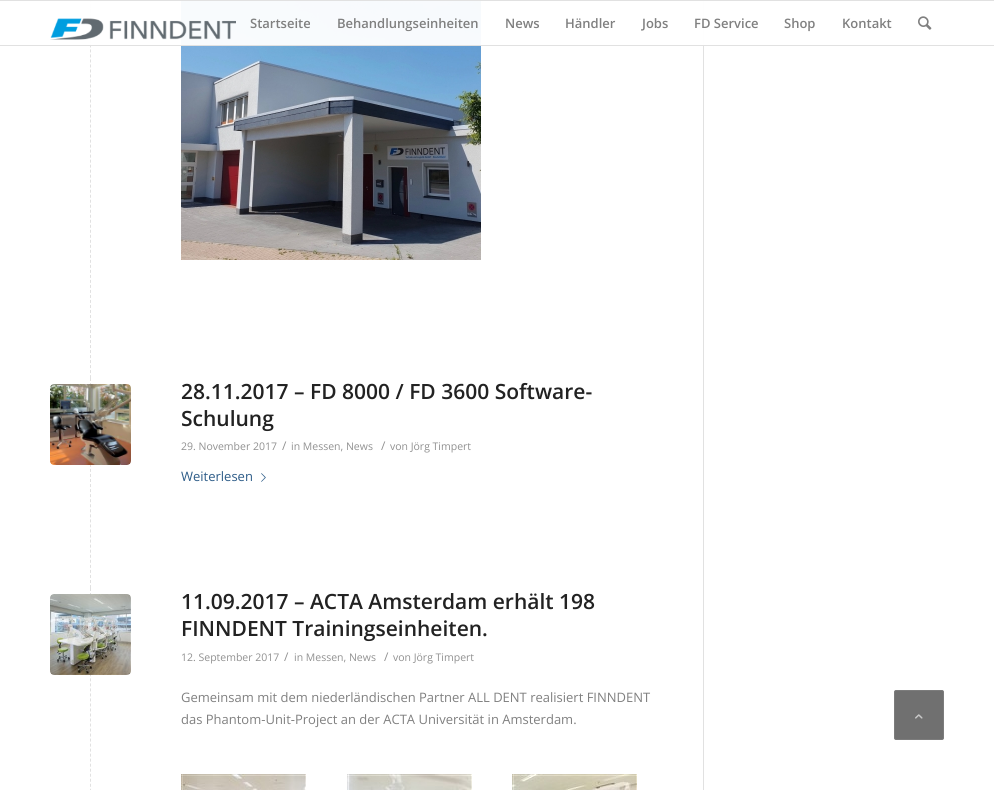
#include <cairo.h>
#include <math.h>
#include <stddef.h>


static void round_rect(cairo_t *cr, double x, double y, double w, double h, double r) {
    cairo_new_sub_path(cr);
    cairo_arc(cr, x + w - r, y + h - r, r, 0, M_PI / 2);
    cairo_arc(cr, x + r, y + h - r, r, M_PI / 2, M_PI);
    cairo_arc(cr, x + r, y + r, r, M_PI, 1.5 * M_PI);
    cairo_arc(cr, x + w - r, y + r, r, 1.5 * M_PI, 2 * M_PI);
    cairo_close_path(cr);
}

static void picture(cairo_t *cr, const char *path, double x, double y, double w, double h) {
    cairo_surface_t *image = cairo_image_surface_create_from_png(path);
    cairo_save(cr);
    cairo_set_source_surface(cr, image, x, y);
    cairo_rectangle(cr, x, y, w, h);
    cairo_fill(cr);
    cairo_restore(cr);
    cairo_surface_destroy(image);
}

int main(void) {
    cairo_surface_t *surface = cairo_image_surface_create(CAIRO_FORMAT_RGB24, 994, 790);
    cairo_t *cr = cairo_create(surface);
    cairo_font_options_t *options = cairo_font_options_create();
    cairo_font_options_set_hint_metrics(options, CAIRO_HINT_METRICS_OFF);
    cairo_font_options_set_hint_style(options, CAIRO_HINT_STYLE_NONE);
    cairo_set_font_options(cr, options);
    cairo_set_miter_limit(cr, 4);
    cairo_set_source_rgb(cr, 1, 1, 1);
    cairo_paint(cr);
    cairo_set_source_rgb(cr, 0.882, 0.882, 0.882);
    cairo_rectangle(cr, 703, 0, 1, 790);
    cairo_fill(cr);
    cairo_new_path(cr);
    cairo_move_to(cr, 90.5, -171);
    cairo_line_to(cr, 90.5, 378);
    cairo_set_line_width(cr, 1);
    cairo_set_dash(cr, (double[]){3, 2.01}, 2, 0);
    cairo_stroke(cr);
    picture(cr, "img3.png", 181, 1, 300, 259);
    cairo_set_source_rgba(cr, 1, 1, 1, 0.95);
    cairo_rectangle(cr, 90, 1, 614, 44);
    cairo_fill(cr);
    cairo_set_source_rgb(cr, 0.882, 0.882, 0.882);
    cairo_rectangle(cr, 0, 0, 994, 1);
    cairo_fill(cr);
    cairo_rectangle(cr, 0, 45, 994, 1);
    cairo_fill(cr);
    picture(cr, "img1.png", 50, 18, 186, 22);
    cairo_select_font_face(cr, "Open Sans SemiBold", CAIRO_FONT_SLANT_NORMAL, CAIRO_FONT_WEIGHT_NORMAL);
    cairo_set_font_size(cr, 13);
    cairo_set_source_rgb(cr, 0.502, 0.502, 0.502);
    cairo_move_to(cr, 250, 28);
    cairo_show_text(cr, "Startseite");
    cairo_move_to(cr, 337, 28);
    cairo_show_text(cr, "Behandlungseinheiten");
    cairo_move_to(cr, 505, 28);
    cairo_show_text(cr, "News");
    cairo_move_to(cr, 565, 28);
    cairo_show_text(cr, "Händler");
    cairo_move_to(cr, 642, 28);
    cairo_show_text(cr, "Jobs");
    cairo_move_to(cr, 694, 28);
    cairo_show_text(cr, "FD Service");
    cairo_move_to(cr, 784, 28);
    cairo_show_text(cr, "Shop");
    cairo_move_to(cr, 842, 28);
    cairo_show_text(cr, "Kontakt");
    picture(cr, "img2.png", 918, 16, 14, 14);
    cairo_new_path(cr);
    cairo_move_to(cr, 90.5, 378);
    cairo_line_to(cr, 90.5, 588);
    cairo_set_source_rgb(cr, 0.882, 0.882, 0.882);
    cairo_set_dash(cr, (double[]){3, 2.05}, 2, 0);
    cairo_stroke(cr);
    cairo_set_font_size(cr, 21);
    cairo_set_source_rgb(cr, 0.133, 0.133, 0.133);
    cairo_move_to(cr, 181, 399);
    cairo_show_text(cr, "28.11.2017 – FD 8000 / FD 3600 Software-");
    cairo_move_to(cr, 181, 426);
    cairo_show_text(cr, "Schulung");
    cairo_select_font_face(cr, "Open Sans", CAIRO_FONT_SLANT_NORMAL, CAIRO_FONT_WEIGHT_NORMAL);
    cairo_set_font_size(cr, 10.5);
    cairo_set_source_rgb(cr, 0.569, 0.569, 0.569);
    cairo_move_to(cr, 181, 450);
    cairo_show_text(cr, "29. November 2017");
    cairo_set_font_size(cr, 12);
    cairo_move_to(cr, 282, 450);
    cairo_show_text(cr, "/");
    cairo_set_font_size(cr, 10.5);
    cairo_move_to(cr, 291, 450);
    cairo_show_text(cr, "in Messen, News");
    cairo_set_font_size(cr, 12);
    cairo_move_to(cr, 381, 450);
    cairo_show_text(cr, "/");
    cairo_set_font_size(cr, 10.5);
    cairo_move_to(cr, 390, 450);
    cairo_show_text(cr, "von Jörg Timpert");
    cairo_set_font_size(cr, 13);
    cairo_set_source_rgb(cr, 0.176, 0.361, 0.533);
    cairo_move_to(cr, 181, 481);
    cairo_show_text(cr, "Weiterlesen");
    picture(cr, "img4.png", 261, 473, 5, 9);
    picture(cr, "img5.png", 50, 384, 81, 81);
    cairo_new_path(cr);
    cairo_move_to(cr, 90.5, 588);
    cairo_line_to(cr, 90.5, 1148);
    cairo_set_source_rgb(cr, 0.882, 0.882, 0.882);
    cairo_set_dash(cr, (double[]){3, 2.02}, 2, 0);
    cairo_stroke(cr);
    cairo_select_font_face(cr, "Open Sans SemiBold", CAIRO_FONT_SLANT_NORMAL, CAIRO_FONT_WEIGHT_NORMAL);
    cairo_set_font_size(cr, 21);
    cairo_set_source_rgb(cr, 0.133, 0.133, 0.133);
    cairo_move_to(cr, 181, 609);
    cairo_show_text(cr, "11.09.2017 – ACTA Amsterdam erhält 198");
    cairo_move_to(cr, 181, 636);
    cairo_show_text(cr, "FINNDENT Trainingseinheiten.");
    cairo_select_font_face(cr, "Open Sans", CAIRO_FONT_SLANT_NORMAL, CAIRO_FONT_WEIGHT_NORMAL);
    cairo_set_font_size(cr, 10.5);
    cairo_set_source_rgb(cr, 0.569, 0.569, 0.569);
    cairo_move_to(cr, 181, 661);
    cairo_show_text(cr, "12. September 2017");
    cairo_set_font_size(cr, 12);
    cairo_move_to(cr, 284, 661);
    cairo_show_text(cr, "/");
    cairo_set_font_size(cr, 10.5);
    cairo_move_to(cr, 294, 661);
    cairo_show_text(cr, "in Messen, News");
    cairo_set_font_size(cr, 12);
    cairo_move_to(cr, 384, 661);
    cairo_show_text(cr, "/");
    cairo_set_font_size(cr, 10.5);
    cairo_move_to(cr, 393, 661);
    cairo_show_text(cr, "von Jörg Timpert");
    cairo_set_font_size(cr, 13);
    cairo_set_source_rgb(cr, 0.502, 0.502, 0.502);
    cairo_move_to(cr, 181, 702);
    cairo_show_text(cr, "Gemeinsam mit dem niederländischen Partner ALL DENT realisiert FINNDENT");
    cairo_move_to(cr, 181, 724);
    cairo_show_text(cr, "das Phantom-Unit-Project an der ACTA Universität in Amsterdam.");
    picture(cr, "img6.png", 181, 774, 125, 16);
    picture(cr, "img7.png", 347, 774, 125, 16);
    picture(cr, "img8.png", 512, 774, 125, 16);
    picture(cr, "img9.png", 50, 594, 81, 81);
    cairo_set_source_rgb(cr, 0.439, 0.439, 0.439);
    round_rect(cr, 894.5, 690.5, 49, 49, 1.5);
    cairo_fill_preserve(cr);
    cairo_set_source_rgb(cr, 0.486, 0.486, 0.486);
    cairo_set_dash(cr, NULL, 0, 0);
    cairo_stroke(cr);
    picture(cr, "img10.png", 915, 714, 8, 5);
    cairo_surface_write_to_png(surface, "page.png");
    cairo_font_options_destroy(options);
    cairo_destroy(cr);
    cairo_surface_destroy(surface);
    return 0;
}
